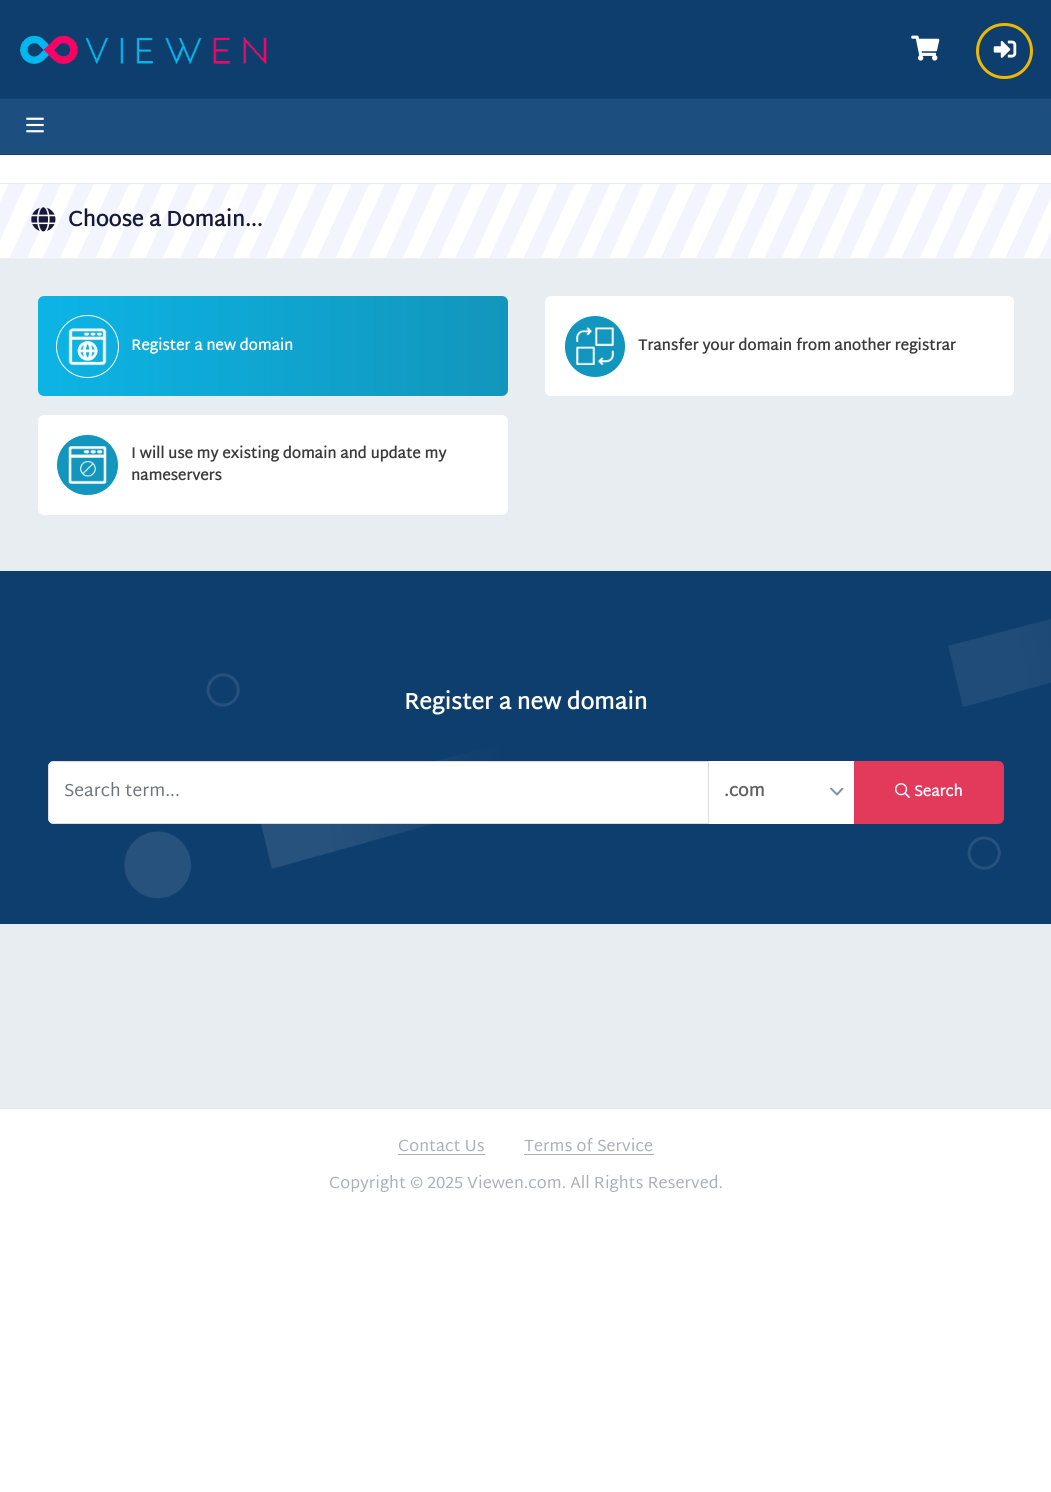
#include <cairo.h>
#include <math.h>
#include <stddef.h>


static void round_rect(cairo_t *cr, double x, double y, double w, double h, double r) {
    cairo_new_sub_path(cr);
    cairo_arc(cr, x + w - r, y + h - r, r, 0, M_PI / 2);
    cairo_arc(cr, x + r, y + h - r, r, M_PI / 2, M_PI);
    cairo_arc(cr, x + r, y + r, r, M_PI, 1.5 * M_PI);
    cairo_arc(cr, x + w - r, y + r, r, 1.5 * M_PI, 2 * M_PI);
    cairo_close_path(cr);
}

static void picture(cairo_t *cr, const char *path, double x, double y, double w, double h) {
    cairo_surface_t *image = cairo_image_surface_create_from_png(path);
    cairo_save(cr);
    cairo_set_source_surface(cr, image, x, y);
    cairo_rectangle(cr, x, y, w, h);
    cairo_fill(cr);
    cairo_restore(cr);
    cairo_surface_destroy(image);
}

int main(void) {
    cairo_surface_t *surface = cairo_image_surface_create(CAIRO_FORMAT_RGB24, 1051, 1492);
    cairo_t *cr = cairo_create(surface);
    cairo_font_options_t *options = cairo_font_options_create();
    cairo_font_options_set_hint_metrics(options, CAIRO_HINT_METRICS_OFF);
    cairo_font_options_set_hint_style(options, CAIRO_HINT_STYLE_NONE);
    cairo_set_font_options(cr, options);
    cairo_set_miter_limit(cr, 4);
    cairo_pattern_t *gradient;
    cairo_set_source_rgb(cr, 1, 1, 1);
    cairo_paint(cr);
    cairo_set_source_rgb(cr, 0.055, 0.243, 0.431);
    cairo_rectangle(cr, 0, 0, 1051, 98);
    cairo_fill(cr);
    picture(cr, "img1.png", 20, 35, 247, 30);
    picture(cr, "img2.png", 911, 35, 29, 26);
    round_rect(cr, 977.5, 24.5, 54, 53, 26.5);
    cairo_set_source_rgb(cr, 0.929, 0.722, 0);
    cairo_set_line_width(cr, 3);
    cairo_stroke(cr);
    picture(cr, "img3.png", 993, 40, 24, 18);
    cairo_set_source_rgb(cr, 0.11, 0.306, 0.502);
    cairo_rectangle(cr, 0, 99, 1051, 55);
    cairo_fill(cr);
    cairo_set_source_rgb(cr, 0.067, 0.263, 0.459);
    cairo_rectangle(cr, 0, 98, 1051, 1);
    cairo_fill(cr);
    cairo_rectangle(cr, 0, 154, 1051, 1);
    cairo_fill(cr);
    picture(cr, "img4.png", 26, 117, 18, 16);
    cairo_set_source_rgb(cr, 0.91, 0.929, 0.949);
    cairo_rectangle(cr, 0, 183, 1051, 925);
    cairo_fill(cr);
    picture(cr, "img5.png", 0, 184, 1051, 74);
    cairo_set_source_rgb(cr, 0.945, 0.945, 0.945);
    cairo_rectangle(cr, 0, 258, 1051, 1);
    cairo_fill(cr);
    picture(cr, "img6.png", 31, 207, 25, 25);
    cairo_select_font_face(cr, "Martel Sans", CAIRO_FONT_SLANT_NORMAL, CAIRO_FONT_WEIGHT_BOLD);
    cairo_set_font_size(cr, 21.25);
    cairo_set_source_rgb(cr, 0.086, 0.098, 0.22);
    cairo_move_to(cr, 68, 226);
    cairo_show_text(cr, "Choose a Domain...");
    gradient = cairo_pattern_create_linear(38, 346, 508, 346);
    cairo_pattern_add_color_stop_rgba(gradient, 0, 0.047, 0.706, 0.898, 1);
    cairo_pattern_add_color_stop_rgba(gradient, 1, 0.071, 0.588, 0.737, 1);
    cairo_set_source(cr, gradient);
    cairo_pattern_destroy(gradient);
    round_rect(cr, 38, 296, 470, 100, 6);
    cairo_fill(cr);
    cairo_arc(cr, 87.5, 346.5, 31, 0, 2 * M_PI);
    cairo_set_source_rgb(cr, 1, 1, 1);
    cairo_set_line_width(cr, 1);
    cairo_stroke(cr);
    picture(cr, "img7.png", 68, 328, 39, 38);
    cairo_set_font_size(cr, 15);
    cairo_move_to(cr, 131, 350);
    cairo_show_text(cr, "Register a new domain");
    round_rect(cr, 545, 296, 469, 100, 6);
    cairo_fill(cr);
    cairo_set_source_rgb(cr, 0.071, 0.588, 0.741);
    round_rect(cr, 564.5, 315.5, 61, 62, 30.5);
    cairo_fill_preserve(cr);
    cairo_set_source_rgb(cr, 1, 1, 1);
    cairo_stroke(cr);
    picture(cr, "img8.png", 576, 327, 38, 38);
    cairo_set_source_rgb(cr, 0.235, 0.231, 0.231);
    cairo_move_to(cr, 638, 350);
    cairo_show_text(cr, "Transfer your domain from another registrar");
    cairo_set_source_rgb(cr, 1, 1, 1);
    round_rect(cr, 38, 415, 470, 100, 6);
    cairo_fill(cr);
    cairo_set_source_rgb(cr, 0.071, 0.588, 0.741);
    round_rect(cr, 56.5, 434.5, 62, 61, 30.5);
    cairo_fill_preserve(cr);
    cairo_set_source_rgb(cr, 1, 1, 1);
    cairo_stroke(cr);
    picture(cr, "img9.png", 68, 446, 39, 38);
    cairo_set_source_rgb(cr, 0.235, 0.231, 0.231);
    cairo_move_to(cr, 131, 458);
    cairo_show_text(cr, "I will use my existing domain and update my");
    cairo_move_to(cr, 131, 480);
    cairo_show_text(cr, "nameservers");
    cairo_set_source_rgb(cr, 0.055, 0.243, 0.431);
    cairo_rectangle(cr, 0, 571, 1051, 353);
    cairo_fill(cr);
    picture(cr, "img10.png", 124, 619, 927, 280);
    cairo_set_font_size(cr, 22.5);
    cairo_set_source_rgb(cr, 1, 1, 1);
    cairo_move_to(cr, 404, 709);
    cairo_show_text(cr, "Register a new domain");
    cairo_new_path(cr);
    cairo_move_to(cr, 54, 761);
    cairo_line_to(cr, 709, 761);
    cairo_line_to(cr, 709, 824);
    cairo_line_to(cr, 54, 824);
    cairo_curve_to(cr, 50.5, 824, 48, 821.5, 48, 818);
    cairo_line_to(cr, 48, 767);
    cairo_curve_to(cr, 48, 763.5, 50.5, 761, 54, 761);
    cairo_close_path(cr);
    cairo_fill(cr);
    cairo_set_source_rgb(cr, 0.867, 0.867, 0.867);
    cairo_set_fill_rule(cr, CAIRO_FILL_RULE_EVEN_ODD);
    cairo_new_path(cr);
    cairo_move_to(cr, 48, 767);
    cairo_line_to(cr, 48, 818);
    cairo_curve_to(cr, 48, 819, 48, 820, 49, 821);
    cairo_line_to(cr, 49, 764);
    cairo_close_path(cr);
    cairo_move_to(cr, 54, 761);
    cairo_line_to(cr, 51, 762);
    cairo_line_to(cr, 708, 762);
    cairo_line_to(cr, 708, 823);
    cairo_line_to(cr, 51, 823);
    cairo_line_to(cr, 54, 824);
    cairo_line_to(cr, 709, 824);
    cairo_line_to(cr, 709, 761);
    cairo_close_path(cr);
    cairo_fill(cr);
    cairo_select_font_face(cr, "Martel Sans", CAIRO_FONT_SLANT_NORMAL, CAIRO_FONT_WEIGHT_NORMAL);
    cairo_set_font_size(cr, 17.5);
    cairo_set_source_rgb(cr, 0.424, 0.459, 0.49);
    cairo_move_to(cr, 64, 796);
    cairo_show_text(cr, "Search term...");
    cairo_set_source_rgb(cr, 1, 1, 1);
    cairo_rectangle(cr, 709, 761, 145, 63);
    cairo_fill(cr);
    cairo_save(cr);
    cairo_set_fill_rule(cr, CAIRO_FILL_RULE_WINDING);
    cairo_rectangle(cr, 830, 788, 14, 8);
    cairo_clip(cr);
    cairo_new_path(cr);
    cairo_move_to(cr, 831, 788.5);
    cairo_line_to(cr, 837, 794.5);
    cairo_line_to(cr, 842.5, 788.5);
    cairo_set_source_rgb(cr, 0.51, 0.565, 0.627);
    cairo_set_line_width(cr, 2);
    cairo_set_line_cap(cr, CAIRO_LINE_CAP_ROUND);
    cairo_set_line_join(cr, CAIRO_LINE_JOIN_ROUND);
    cairo_stroke(cr);
    cairo_restore(cr);
    cairo_select_font_face(cr, "Martel Sans", CAIRO_FONT_SLANT_NORMAL, CAIRO_FONT_WEIGHT_BOLD);
    cairo_set_source_rgb(cr, 0.384, 0.384, 0.384);
    cairo_move_to(cr, 724, 796);
    cairo_show_text(cr, ".com");
    cairo_set_source_rgb(cr, 0.89, 0.224, 0.357);
    cairo_new_path(cr);
    cairo_move_to(cr, 854, 761);
    cairo_line_to(cr, 998, 761);
    cairo_curve_to(cr, 1001.5, 761, 1004, 763.5, 1004, 767);
    cairo_line_to(cr, 1004, 818);
    cairo_curve_to(cr, 1004, 821.5, 1001.5, 824, 998, 824);
    cairo_line_to(cr, 854, 824);
    cairo_close_path(cr);
    cairo_fill(cr);
    picture(cr, "img11.png", 895, 783, 15, 15);
    cairo_set_font_size(cr, 15);
    cairo_set_source_rgb(cr, 1, 1, 1);
    cairo_move_to(cr, 914, 796);
    cairo_show_text(cr, "Search");
    cairo_set_source_rgb(cr, 0.906, 0.906, 0.906);
    cairo_rectangle(cr, 0, 1108, 1051, 1);
    cairo_fill(cr);
    cairo_select_font_face(cr, "Martel Sans", CAIRO_FONT_SLANT_NORMAL, CAIRO_FONT_WEIGHT_NORMAL);
    cairo_set_font_size(cr, 16.25);
    cairo_set_source_rgb(cr, 0.675, 0.686, 0.725);
    cairo_move_to(cr, 398, 1151);
    cairo_show_text(cr, "Contact Us");
    cairo_rectangle(cr, 398, 1154, 87, 1);
    cairo_fill(cr);
    cairo_move_to(cr, 524, 1151);
    cairo_show_text(cr, "Terms of Service");
    cairo_rectangle(cr, 524, 1154, 130, 1);
    cairo_fill(cr);
    cairo_move_to(cr, 329, 1188);
    cairo_show_text(cr, "Copyright © 2025 Viewen.com. All Rights Reserved.");
    cairo_surface_write_to_png(surface, "page.png");
    cairo_font_options_destroy(options);
    cairo_destroy(cr);
    cairo_surface_destroy(surface);
    return 0;
}
